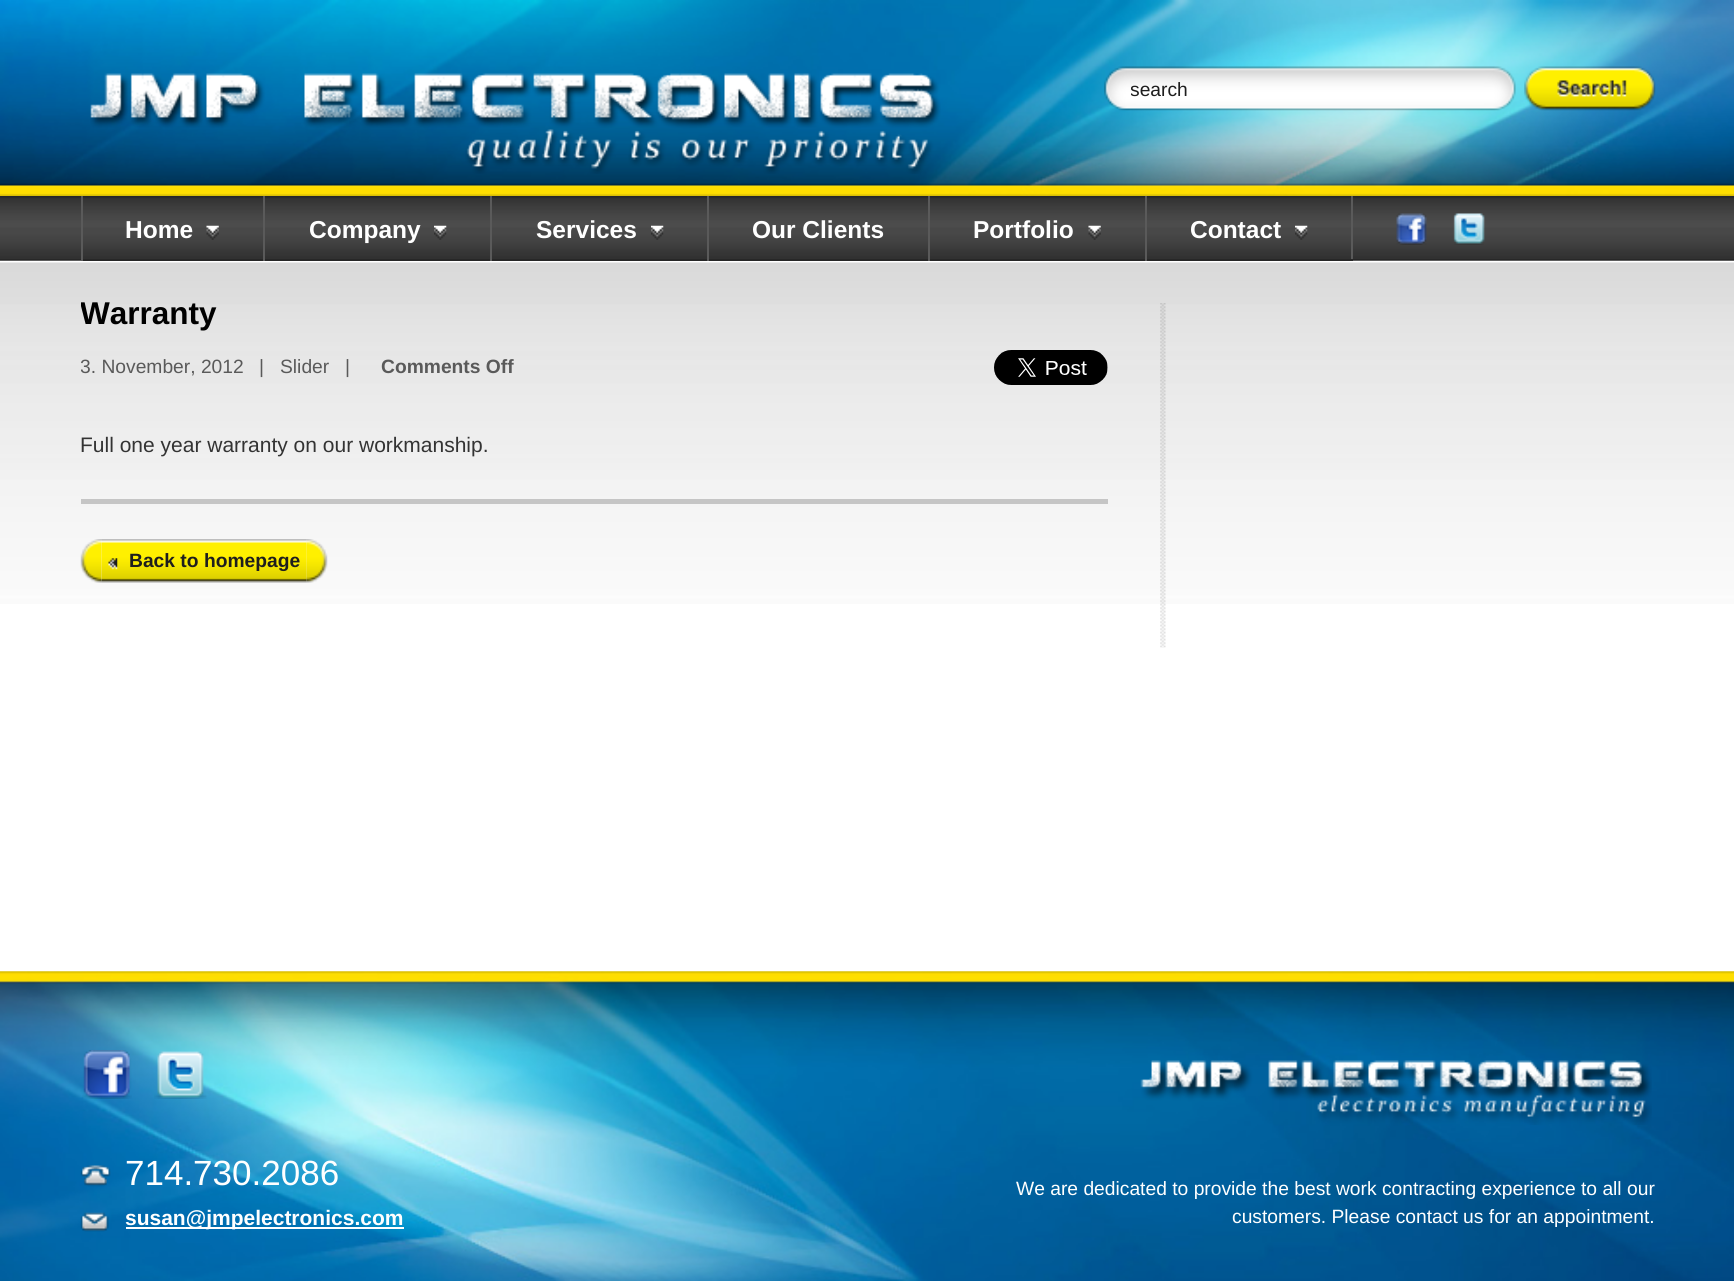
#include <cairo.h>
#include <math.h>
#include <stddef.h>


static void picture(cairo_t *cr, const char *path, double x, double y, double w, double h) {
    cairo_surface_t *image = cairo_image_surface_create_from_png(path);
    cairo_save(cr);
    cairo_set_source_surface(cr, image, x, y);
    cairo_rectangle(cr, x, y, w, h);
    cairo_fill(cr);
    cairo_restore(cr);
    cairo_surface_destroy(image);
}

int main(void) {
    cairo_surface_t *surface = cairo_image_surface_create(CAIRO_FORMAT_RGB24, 1734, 1281);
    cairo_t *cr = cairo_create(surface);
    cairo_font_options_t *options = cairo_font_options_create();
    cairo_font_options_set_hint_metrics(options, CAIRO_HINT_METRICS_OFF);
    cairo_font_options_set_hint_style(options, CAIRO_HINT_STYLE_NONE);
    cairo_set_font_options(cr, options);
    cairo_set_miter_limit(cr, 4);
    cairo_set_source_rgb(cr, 1, 1, 1);
    cairo_paint(cr);
    picture(cr, "img1.png", 0, 0, 1734, 196);
    picture(cr, "img2.png", 90, 73, 851, 101);
    picture(cr, "img3.png", 1104, 66, 412, 45);
    cairo_save(cr);
    cairo_rectangle(cr, 1131, 68, 385, 42);
    cairo_clip(cr);
    cairo_select_font_face(cr, "Liberation Sans", CAIRO_FONT_SLANT_NORMAL, CAIRO_FONT_WEIGHT_NORMAL);
    cairo_set_font_size(cr, 19.25);
    cairo_set_source_rgb(cr, 0.118, 0.118, 0.118);
    cairo_move_to(cr, 1130, 96);
    cairo_show_text(cr, "search");
    cairo_restore(cr);
    picture(cr, "img4.png", 1524, 66, 132, 45);
    picture(cr, "img5.png", 0, 196, 1734, 63);
    cairo_set_source_rgb(cr, 0.153, 0.153, 0.153);
    cairo_rectangle(cr, 0, 259, 1734, 2);
    cairo_fill(cr);
    picture(cr, "img11.png", 0, 260, 1734, 344);
    cairo_rectangle(cr, 81, 260, 1065, 1);
    cairo_fill(cr);
    cairo_set_source_rgb(cr, 0.353, 0.353, 0.353);
    cairo_rectangle(cr, 81, 196, 2, 65);
    cairo_fill(cr);
    cairo_select_font_face(cr, "Liberation Sans", CAIRO_FONT_SLANT_NORMAL, CAIRO_FONT_WEIGHT_BOLD);
    cairo_set_font_size(cr, 24.5);
    cairo_set_source_rgb(cr, 1, 1, 1);
    cairo_move_to(cr, 125, 238);
    cairo_show_text(cr, "Home");
    picture(cr, "img6.png", 206, 225, 13, 15);
    cairo_set_source_rgb(cr, 0.353, 0.353, 0.353);
    cairo_rectangle(cr, 263, 196, 2, 65);
    cairo_fill(cr);
    cairo_set_source_rgb(cr, 1, 1, 1);
    cairo_move_to(cr, 309, 238);
    cairo_show_text(cr, "Company");
    picture(cr, "img7.png", 434, 225, 13, 15);
    cairo_set_source_rgb(cr, 0.353, 0.353, 0.353);
    cairo_rectangle(cr, 490, 196, 2, 65);
    cairo_fill(cr);
    cairo_set_source_rgb(cr, 1, 1, 1);
    cairo_move_to(cr, 536, 238);
    cairo_show_text(cr, "Services");
    picture(cr, "img7.png", 651, 225, 13, 15);
    cairo_set_source_rgb(cr, 0.353, 0.353, 0.353);
    cairo_rectangle(cr, 707, 196, 2, 65);
    cairo_fill(cr);
    cairo_set_source_rgb(cr, 1, 1, 1);
    cairo_move_to(cr, 752, 238);
    cairo_show_text(cr, "Our Clients");
    cairo_set_source_rgb(cr, 0.353, 0.353, 0.353);
    cairo_rectangle(cr, 928, 196, 2, 65);
    cairo_fill(cr);
    cairo_set_source_rgb(cr, 1, 1, 1);
    cairo_move_to(cr, 973, 238);
    cairo_show_text(cr, "Portfolio");
    picture(cr, "img6.png", 1088, 225, 13, 15);
    cairo_set_source_rgb(cr, 0.353, 0.353, 0.353);
    cairo_rectangle(cr, 1351, 196, 2, 65);
    cairo_fill(cr);
    cairo_set_source_rgb(cr, 0.153, 0.153, 0.153);
    cairo_rectangle(cr, 1145, 259, 208, 2);
    cairo_fill(cr);
    cairo_set_source_rgb(cr, 0.353, 0.353, 0.353);
    cairo_rectangle(cr, 1145, 196, 2, 65);
    cairo_fill(cr);
    cairo_set_source_rgb(cr, 1, 1, 1);
    cairo_move_to(cr, 1190, 238);
    cairo_show_text(cr, "Contact");
    picture(cr, "img8.png", 1295, 225, 13, 15);
    picture(cr, "img9.png", 1396, 213, 31, 32);
    picture(cr, "img10.png", 1453, 213, 32, 32);
    picture(cr, "img12.png", 1160, 303, 6, 345);
    cairo_save(cr);
    cairo_rectangle(cr, 81, 261, 1575, 430);
    cairo_clip(cr);
    cairo_set_font_size(cr, 31.5);
    cairo_set_source_rgb(cr, 0, 0, 0);
    cairo_move_to(cr, 80, 324);
    cairo_show_text(cr, "Warranty");
    cairo_restore(cr);
    cairo_save(cr);
    cairo_rectangle(cr, 81, 350, 1027, 44);
    cairo_clip(cr);
    cairo_select_font_face(cr, "Liberation Sans", CAIRO_FONT_SLANT_NORMAL, CAIRO_FONT_WEIGHT_NORMAL);
    cairo_set_font_size(cr, 19.25);
    cairo_set_source_rgb(cr, 0.353, 0.353, 0.353);
    cairo_move_to(cr, 80, 373);
    cairo_show_text(cr, "3. November, 2012");
    cairo_restore(cr);
    cairo_select_font_face(cr, "Liberation Sans", CAIRO_FONT_SLANT_NORMAL, CAIRO_FONT_WEIGHT_NORMAL);
    cairo_set_font_size(cr, 19.25);
    cairo_set_source_rgb(cr, 0.353, 0.353, 0.353);
    cairo_move_to(cr, 259, 373);
    cairo_show_text(cr, "|");
    cairo_move_to(cr, 280, 373);
    cairo_show_text(cr, "Slider");
    cairo_move_to(cr, 345, 373);
    cairo_show_text(cr, "|");
    cairo_select_font_face(cr, "Liberation Sans", CAIRO_FONT_SLANT_NORMAL, CAIRO_FONT_WEIGHT_BOLD);
    cairo_move_to(cr, 381, 373);
    cairo_show_text(cr, "Comments Off");
    picture(cr, "img13.png", 994, 350, 114, 35);
    cairo_select_font_face(cr, "Liberation Sans", CAIRO_FONT_SLANT_NORMAL, CAIRO_FONT_WEIGHT_NORMAL);
    cairo_set_font_size(cr, 21);
    cairo_set_source_rgb(cr, 0.2, 0.2, 0.2);
    cairo_move_to(cr, 80, 452);
    cairo_show_text(cr, "Full one year warranty on our workmanship.");
    cairo_set_source_rgb(cr, 0.773, 0.773, 0.773);
    cairo_rectangle(cr, 81, 499, 1027, 5);
    cairo_fill(cr);
    picture(cr, "img14.png", 80, 539, 22, 44);
    picture(cr, "img15.png", 101, 539, 206, 44);
    picture(cr, "img16.png", 108, 558, 10, 12);
    cairo_select_font_face(cr, "Liberation Sans", CAIRO_FONT_SLANT_NORMAL, CAIRO_FONT_WEIGHT_BOLD);
    cairo_set_font_size(cr, 19.25);
    cairo_set_source_rgb(cr, 0.118, 0.118, 0.118);
    cairo_move_to(cr, 129, 567);
    cairo_show_text(cr, "Back to homepage");
    picture(cr, "img17.png", 306, 539, 22, 44);
    picture(cr, "img18.png", 0, 971, 1734, 310);
    picture(cr, "img19.png", 82, 1050, 50, 49);
    picture(cr, "img20.png", 154, 1051, 53, 48);
    picture(cr, "img21.png", 80, 1165, 31, 22);
    cairo_select_font_face(cr, "Liberation Sans", CAIRO_FONT_SLANT_NORMAL, CAIRO_FONT_WEIGHT_NORMAL);
    cairo_set_font_size(cr, 35);
    cairo_set_source_rgb(cr, 1, 1, 1);
    cairo_move_to(cr, 125, 1185);
    cairo_show_text(cr, "714.730.2086");
    picture(cr, "img22.png", 80, 1212, 29, 20);
    cairo_rectangle(cr, 126, 1227, 278, 2);
    cairo_fill(cr);
    cairo_select_font_face(cr, "Liberation Sans", CAIRO_FONT_SLANT_NORMAL, CAIRO_FONT_WEIGHT_BOLD);
    cairo_set_font_size(cr, 21);
    cairo_move_to(cr, 125, 1225);
    cairo_show_text(cr, "susan@jmpelectronics.com");
    picture(cr, "img23.png", 1140, 1060, 512, 65);
    cairo_select_font_face(cr, "Liberation Sans", CAIRO_FONT_SLANT_NORMAL, CAIRO_FONT_WEIGHT_NORMAL);
    cairo_set_font_size(cr, 19.25);
    cairo_move_to(cr, 1016, 1195);
    cairo_show_text(cr, "We are dedicated to provide the best work contracting experience to all our");
    cairo_move_to(cr, 1232, 1223);
    cairo_show_text(cr, "customers. Please contact us for an appointment.");
    cairo_surface_write_to_png(surface, "page.png");
    cairo_font_options_destroy(options);
    cairo_destroy(cr);
    cairo_surface_destroy(surface);
    return 0;
}
